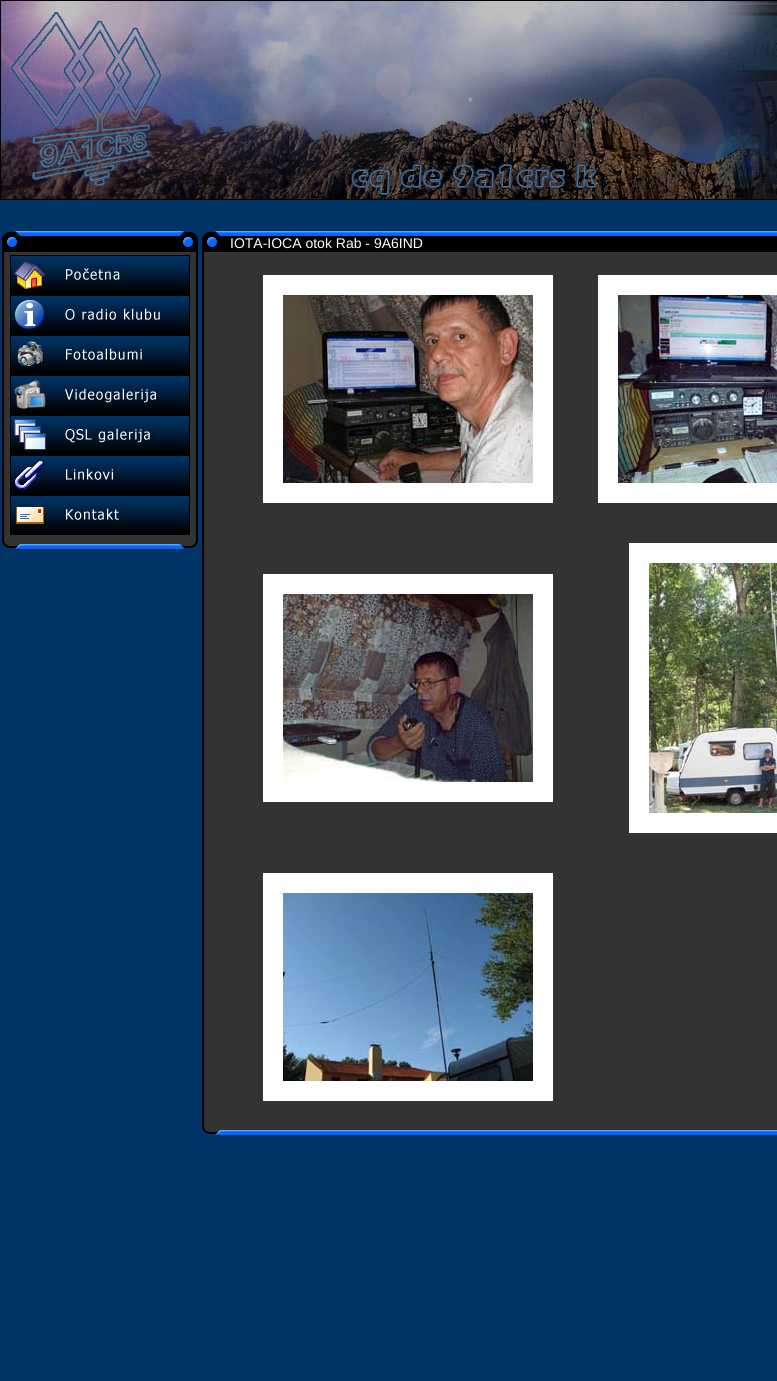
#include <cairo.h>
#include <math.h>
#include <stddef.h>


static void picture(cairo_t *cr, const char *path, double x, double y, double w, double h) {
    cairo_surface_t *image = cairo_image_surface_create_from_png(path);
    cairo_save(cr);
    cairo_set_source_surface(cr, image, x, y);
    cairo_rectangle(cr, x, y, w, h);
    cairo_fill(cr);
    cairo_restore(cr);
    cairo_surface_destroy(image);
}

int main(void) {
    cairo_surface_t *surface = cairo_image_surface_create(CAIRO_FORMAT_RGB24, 777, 1381);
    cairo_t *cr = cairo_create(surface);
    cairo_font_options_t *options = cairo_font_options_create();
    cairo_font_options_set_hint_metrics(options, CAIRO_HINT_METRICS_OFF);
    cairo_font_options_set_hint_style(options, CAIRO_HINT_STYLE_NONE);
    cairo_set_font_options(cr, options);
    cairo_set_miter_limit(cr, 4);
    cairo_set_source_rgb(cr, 0, 0.2, 0.4);
    cairo_paint(cr);
    picture(cr, "img1.png", 0, 0, 777, 200);
    picture(cr, "img2.png", 2, 231, 28, 24);
    picture(cr, "img3.png", 30, 231, 140, 24);
    picture(cr, "img4.png", 170, 231, 28, 24);
    picture(cr, "img5.png", 2, 255, 8, 280);
    picture(cr, "img6.png", 10, 255, 180, 40);
    picture(cr, "img7.png", 10, 256, 179, 38);
    picture(cr, "img8.png", 10, 295, 180, 40);
    picture(cr, "img9.png", 11, 296, 178, 38);
    picture(cr, "img10.png", 10, 335, 180, 40);
    picture(cr, "img11.png", 11, 336, 178, 38);
    picture(cr, "img12.png", 10, 375, 180, 40);
    picture(cr, "img13.png", 10, 376, 179, 39);
    picture(cr, "img14.png", 10, 415, 180, 40);
    picture(cr, "img15.png", 10, 415, 179, 39);
    picture(cr, "img16.png", 10, 455, 180, 40);
    picture(cr, "img17.png", 11, 456, 178, 38);
    picture(cr, "img18.png", 10, 495, 180, 40);
    picture(cr, "img19.png", 11, 496, 178, 38);
    picture(cr, "img20.png", 190, 255, 8, 280);
    picture(cr, "img21.png", 2, 535, 28, 14);
    picture(cr, "img22.png", 30, 535, 140, 14);
    picture(cr, "img23.png", 170, 535, 28, 14);
    picture(cr, "img2.png", 202, 231, 28, 24);
    picture(cr, "img24.png", 230, 231, 547, 24);
    cairo_select_font_face(cr, "Liberation Sans", CAIRO_FONT_SLANT_NORMAL, CAIRO_FONT_WEIGHT_NORMAL);
    cairo_set_font_size(cr, 14);
    cairo_set_source_rgb(cr, 1, 1, 1);
    cairo_move_to(cr, 230, 248);
    cairo_show_text(cr, "IOTA-IOCA otok Rab - 9A6IND");
    picture(cr, "img25.png", 202, 255, 8, 866);
    cairo_set_source_rgb(cr, 0.2, 0.2, 0.2);
    cairo_rectangle(cr, 210, 255, 567, 866);
    cairo_fill(cr);
    cairo_set_source_rgb(cr, 1, 1, 1);
    cairo_rectangle(cr, 263, 275, 290, 228);
    cairo_fill(cr);
    picture(cr, "img26.png", 283, 295, 250, 188);
    cairo_rectangle(cr, 598, 275, 179, 228);
    cairo_fill(cr);
    picture(cr, "img27.png", 618, 295, 159, 188);
    cairo_rectangle(cr, 263, 574, 290, 228);
    cairo_fill(cr);
    picture(cr, "img28.png", 283, 594, 250, 188);
    cairo_rectangle(cr, 629, 543, 148, 290);
    cairo_fill(cr);
    picture(cr, "img29.png", 649, 563, 128, 250);
    cairo_rectangle(cr, 263, 873, 290, 228);
    cairo_fill(cr);
    picture(cr, "img30.png", 283, 893, 250, 188);
    picture(cr, "img21.png", 202, 1121, 28, 14);
    picture(cr, "img31.png", 230, 1121, 547, 14);
    cairo_surface_write_to_png(surface, "page.png");
    cairo_font_options_destroy(options);
    cairo_destroy(cr);
    cairo_surface_destroy(surface);
    return 0;
}
